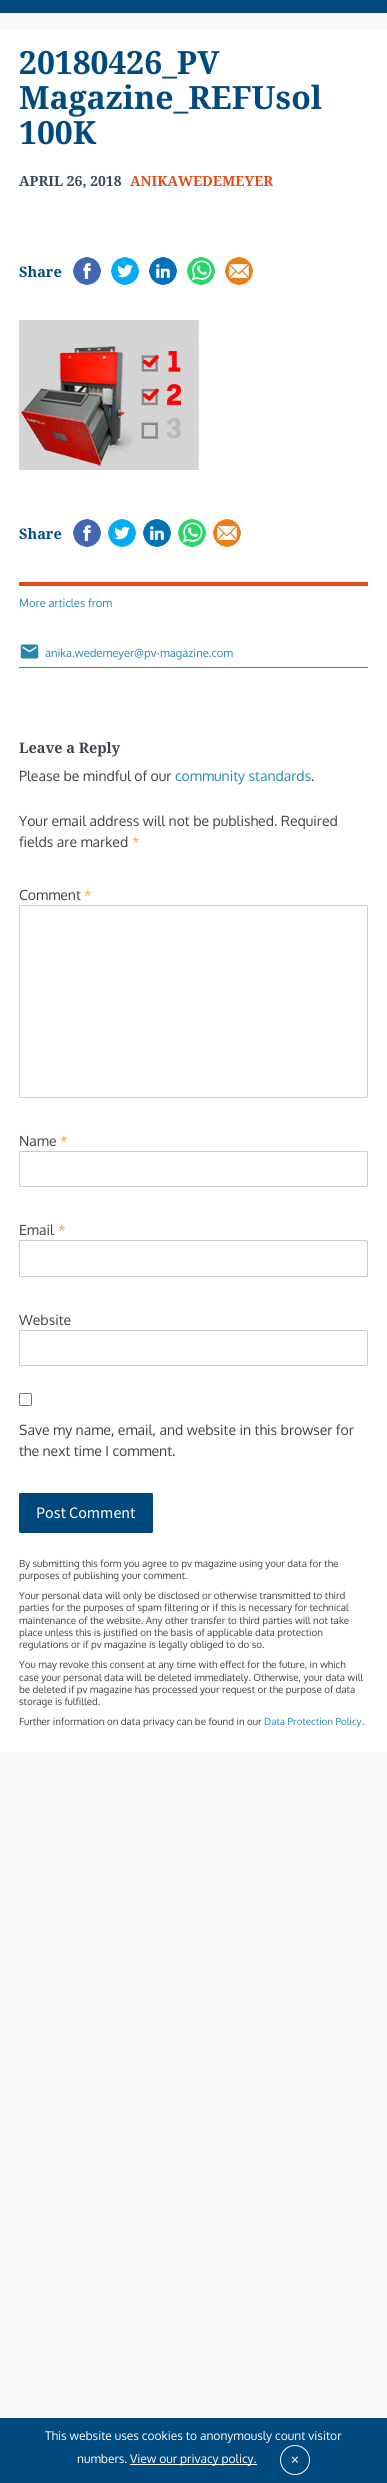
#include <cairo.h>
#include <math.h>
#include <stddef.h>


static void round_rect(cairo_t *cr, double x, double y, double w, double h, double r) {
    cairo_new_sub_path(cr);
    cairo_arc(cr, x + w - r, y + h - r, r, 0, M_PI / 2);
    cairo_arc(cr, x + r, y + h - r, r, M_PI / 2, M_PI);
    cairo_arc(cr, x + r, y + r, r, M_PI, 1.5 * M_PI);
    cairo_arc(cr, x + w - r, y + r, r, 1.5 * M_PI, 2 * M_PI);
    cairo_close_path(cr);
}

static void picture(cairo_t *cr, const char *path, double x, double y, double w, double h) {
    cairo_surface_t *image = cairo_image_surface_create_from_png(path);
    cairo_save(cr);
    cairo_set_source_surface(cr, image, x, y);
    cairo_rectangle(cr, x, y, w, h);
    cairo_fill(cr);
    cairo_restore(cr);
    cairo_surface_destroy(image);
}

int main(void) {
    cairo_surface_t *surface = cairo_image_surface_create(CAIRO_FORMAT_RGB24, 387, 2483);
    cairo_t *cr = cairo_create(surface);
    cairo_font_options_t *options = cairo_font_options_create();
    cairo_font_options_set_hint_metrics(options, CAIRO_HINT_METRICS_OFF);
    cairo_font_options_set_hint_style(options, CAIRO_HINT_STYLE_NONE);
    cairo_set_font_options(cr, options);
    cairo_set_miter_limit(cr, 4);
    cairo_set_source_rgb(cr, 0.976, 0.976, 0.976);
    cairo_paint(cr);
    cairo_set_source_rgb(cr, 0, 0.29, 0.498);
    cairo_rectangle(cr, 0, 0, 387, 13);
    cairo_fill(cr);
    cairo_set_source_rgb(cr, 1, 1, 1);
    cairo_rectangle(cr, 0, 13, 387, 1);
    cairo_fill(cr);
    cairo_rectangle(cr, 0, 30, 387, 1722);
    cairo_fill(cr);
    cairo_select_font_face(cr, "Droid Serif", CAIRO_FONT_SLANT_NORMAL, CAIRO_FONT_WEIGHT_BOLD);
    cairo_set_font_size(cr, 32);
    cairo_set_source_rgb(cr, 0, 0.29, 0.498);
    cairo_move_to(cr, 19, 74);
    cairo_show_text(cr, "20180426_PV");
    cairo_move_to(cr, 19, 109);
    cairo_show_text(cr, "Magazine_REFUsol");
    cairo_move_to(cr, 19, 144);
    cairo_show_text(cr, "100K");
    cairo_set_font_size(cr, 14);
    cairo_set_source_rgb(cr, 0.204, 0.286, 0.369);
    cairo_move_to(cr, 19, 186);
    cairo_show_text(cr, "APRIL 26, 2018");
    cairo_set_source_rgb(cr, 0.894, 0.29, 0.094);
    cairo_move_to(cr, 130, 186);
    cairo_show_text(cr, "ANIKAWEDEMEYER");
    cairo_set_font_size(cr, 14.5);
    cairo_set_source_rgb(cr, 0, 0.29, 0.498);
    cairo_move_to(cr, 19, 277);
    cairo_show_text(cr, "Share");
    picture(cr, "img1.png", 72, 256, 29, 29);
    picture(cr, "img2.png", 110, 256, 29, 29);
    picture(cr, "img3.png", 148, 256, 29, 29);
    picture(cr, "img4.png", 187, 257, 28, 28);
    picture(cr, "img5.png", 224, 256, 29, 29);
    picture(cr, "img6.png", 19, 320, 180, 150);
    cairo_move_to(cr, 19, 539);
    cairo_show_text(cr, "Share");
    picture(cr, "img1.png", 72, 518, 29, 29);
    picture(cr, "img2.png", 107, 518, 29, 29);
    picture(cr, "img3.png", 142, 518, 29, 29);
    picture(cr, "img4.png", 178, 519, 28, 28);
    picture(cr, "img5.png", 212, 518, 29, 29);
    cairo_set_source_rgb(cr, 0.894, 0.29, 0.094);
    cairo_rectangle(cr, 19, 667, 349, 1);
    cairo_fill(cr);
    cairo_rectangle(cr, 19, 582, 349, 4);
    cairo_fill(cr);
    cairo_select_font_face(cr, "Oxygen", CAIRO_FONT_SLANT_NORMAL, CAIRO_FONT_WEIGHT_NORMAL);
    cairo_set_font_size(cr, 11.25);
    cairo_set_source_rgb(cr, 0.153, 0.525, 0.686);
    cairo_move_to(cr, 19, 607);
    cairo_show_text(cr, "More articles from");
    picture(cr, "img7.png", 20, 644, 19, 15);
    cairo_move_to(cr, 45, 657);
    cairo_show_text(cr, "anika.wedemeyer@pv-magazine.com");
    cairo_select_font_face(cr, "Droid Serif", CAIRO_FONT_SLANT_NORMAL, CAIRO_FONT_WEIGHT_BOLD);
    cairo_set_font_size(cr, 14.5);
    cairo_set_source_rgb(cr, 0.235, 0.263, 0.298);
    cairo_move_to(cr, 19, 753);
    cairo_show_text(cr, "Leave a Reply");
    cairo_select_font_face(cr, "Oxygen", CAIRO_FONT_SLANT_NORMAL, CAIRO_FONT_WEIGHT_NORMAL);
    cairo_set_font_size(cr, 14);
    cairo_set_source_rgb(cr, 0.251, 0.251, 0.251);
    cairo_move_to(cr, 19, 781);
    cairo_show_text(cr, "Please be mindful of our");
    cairo_set_source_rgb(cr, 0.153, 0.525, 0.686);
    cairo_move_to(cr, 175, 781);
    cairo_show_text(cr, "community standards");
    cairo_set_source_rgb(cr, 0.251, 0.251, 0.251);
    cairo_move_to(cr, 311, 781);
    cairo_show_text(cr, ".");
    cairo_move_to(cr, 19, 826);
    cairo_show_text(cr, "Your email address will not be published. Required");
    cairo_move_to(cr, 19, 847);
    cairo_show_text(cr, "fields are marked");
    cairo_set_source_rgb(cr, 0.941, 0.678, 0.306);
    cairo_move_to(cr, 132, 847);
    cairo_show_text(cr, "*");
    cairo_set_source_rgb(cr, 0.251, 0.251, 0.251);
    cairo_move_to(cr, 19, 900);
    cairo_show_text(cr, "Comment");
    cairo_set_source_rgb(cr, 0.941, 0.678, 0.306);
    cairo_move_to(cr, 84, 900);
    cairo_show_text(cr, "*");
    round_rect(cr, 19.5, 905.5, 348, 192, 1);
    cairo_set_source_rgb(cr, 0.8, 0.8, 0.8);
    cairo_set_line_width(cr, 1);
    cairo_stroke(cr);
    cairo_set_source_rgb(cr, 0.251, 0.251, 0.251);
    cairo_move_to(cr, 19, 1146);
    cairo_show_text(cr, "Name");
    cairo_set_source_rgb(cr, 0.941, 0.678, 0.306);
    cairo_move_to(cr, 60, 1146);
    cairo_show_text(cr, "*");
    round_rect(cr, 19.5, 1151.5, 348, 35, 1);
    cairo_set_source_rgb(cr, 0.8, 0.8, 0.8);
    cairo_stroke(cr);
    cairo_set_source_rgb(cr, 0.251, 0.251, 0.251);
    cairo_move_to(cr, 19, 1235);
    cairo_show_text(cr, "Email");
    cairo_set_source_rgb(cr, 0.941, 0.678, 0.306);
    cairo_move_to(cr, 58, 1235);
    cairo_show_text(cr, "*");
    round_rect(cr, 19.5, 1240.5, 348, 36, 1);
    cairo_set_source_rgb(cr, 0.8, 0.8, 0.8);
    cairo_stroke(cr);
    cairo_set_source_rgb(cr, 0.251, 0.251, 0.251);
    cairo_move_to(cr, 19, 1325);
    cairo_show_text(cr, "Website");
    round_rect(cr, 19.5, 1330.5, 348, 35, 1);
    cairo_set_source_rgb(cr, 0.8, 0.8, 0.8);
    cairo_stroke(cr);
    round_rect(cr, 19.5, 1393.5, 12, 12, 1.5);
    cairo_set_source_rgb(cr, 0.463, 0.463, 0.463);
    cairo_stroke(cr);
    cairo_set_source_rgb(cr, 0.251, 0.251, 0.251);
    cairo_move_to(cr, 19, 1435);
    cairo_show_text(cr, "Save my name, email, and website in this browser for");
    cairo_move_to(cr, 19, 1456);
    cairo_show_text(cr, "the next time I comment.");
    cairo_set_source_rgb(cr, 0.004, 0.282, 0.494);
    round_rect(cr, 19.5, 1493.5, 133, 39, 1);
    cairo_fill_preserve(cr);
    cairo_stroke(cr);
    cairo_select_font_face(cr, "Source Sans Pro", CAIRO_FONT_SLANT_NORMAL, CAIRO_FONT_WEIGHT_NORMAL);
    cairo_set_font_size(cr, 16);
    cairo_set_source_rgb(cr, 1, 1, 1);
    cairo_move_to(cr, 36, 1518);
    cairo_show_text(cr, "Post Comment");
    cairo_select_font_face(cr, "Oxygen", CAIRO_FONT_SLANT_NORMAL, CAIRO_FONT_WEIGHT_NORMAL);
    cairo_set_font_size(cr, 9.8);
    cairo_set_source_rgb(cr, 0.251, 0.251, 0.251);
    cairo_move_to(cr, 19, 1567);
    cairo_show_text(cr, "By submitting this form you agree to pv magazine using your data for the");
    cairo_move_to(cr, 19, 1579);
    cairo_show_text(cr, "purposes of publishing your comment.");
    cairo_move_to(cr, 19, 1599);
    cairo_show_text(cr, "Your personal data will only be disclosed or otherwise transmitted to third");
    cairo_move_to(cr, 19, 1611);
    cairo_show_text(cr, "parties for the purposes of spam filtering or if this is necessary for technical");
    cairo_move_to(cr, 19, 1624);
    cairo_show_text(cr, "maintenance of the website. Any other transfer to third parties will not take");
    cairo_move_to(cr, 19, 1636);
    cairo_show_text(cr, "place unless this is justified on the basis of applicable data protection");
    cairo_move_to(cr, 19, 1648);
    cairo_show_text(cr, "regulations or if pv magazine is legally obliged to do so.");
    cairo_move_to(cr, 19, 1668);
    cairo_show_text(cr, "You may revoke this consent at any time with effect for the future, in which");
    cairo_move_to(cr, 19, 1681);
    cairo_show_text(cr, "case your personal data will be deleted immediately. Otherwise, your data will");
    cairo_move_to(cr, 19, 1693);
    cairo_show_text(cr, "be deleted if pv magazine has processed your request or the purpose of data");
    cairo_move_to(cr, 19, 1705);
    cairo_show_text(cr, "storage is fulfilled.");
    cairo_move_to(cr, 19, 1725);
    cairo_show_text(cr, "Further information on data privacy can be found in our");
    cairo_set_source_rgb(cr, 0.153, 0.525, 0.686);
    cairo_move_to(cr, 264, 1725);
    cairo_show_text(cr, "Data Protection Policy");
    cairo_set_source_rgb(cr, 0.251, 0.251, 0.251);
    cairo_move_to(cr, 362, 1725);
    cairo_show_text(cr, ".");
    cairo_set_source_rgb(cr, 0, 0.29, 0.498);
    cairo_rectangle(cr, 0, 2418, 387, 65);
    cairo_fill(cr);
    cairo_set_font_size(cr, 12);
    cairo_set_source_rgb(cr, 1, 1, 1);
    cairo_move_to(cr, 45, 2440);
    cairo_show_text(cr, "This website uses cookies to anonymously count visitor");
    cairo_move_to(cr, 77, 2463);
    cairo_show_text(cr, "numbers.");
    cairo_rectangle(cr, 130, 2464, 127, 1);
    cairo_fill(cr);
    cairo_move_to(cr, 130, 2463);
    cairo_show_text(cr, "View our privacy policy.");
    cairo_new_path(cr);
    cairo_arc(cr, 295, 2460, 14.5, 0, 2 * M_PI);
    cairo_set_source_rgb(cr, 0.965, 0.965, 0.965);
    cairo_stroke(cr);
    cairo_select_font_face(cr, "Source Sans Pro", CAIRO_FONT_SLANT_NORMAL, CAIRO_FONT_WEIGHT_NORMAL);
    cairo_set_font_size(cr, 16);
    cairo_set_source_rgb(cr, 1, 1, 1);
    cairo_move_to(cr, 291, 2465);
    cairo_show_text(cr, "×");
    cairo_surface_write_to_png(surface, "page.png");
    cairo_font_options_destroy(options);
    cairo_destroy(cr);
    cairo_surface_destroy(surface);
    return 0;
}
